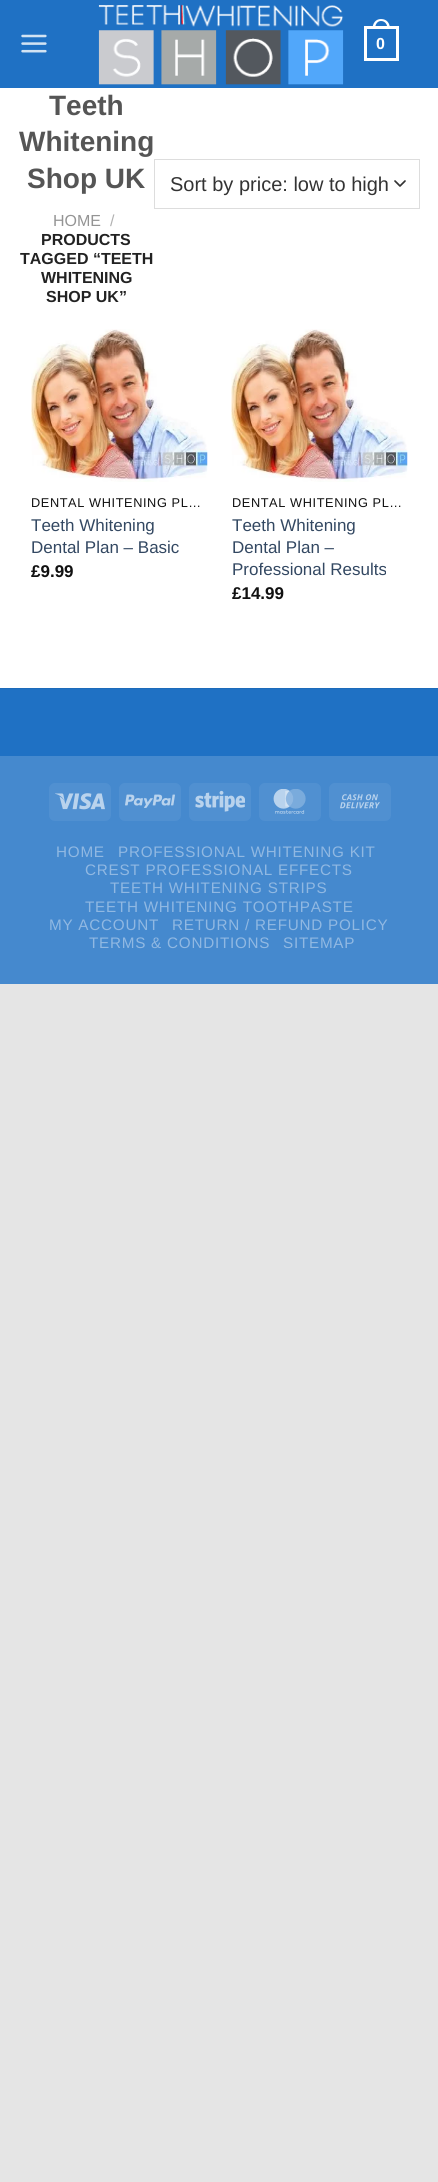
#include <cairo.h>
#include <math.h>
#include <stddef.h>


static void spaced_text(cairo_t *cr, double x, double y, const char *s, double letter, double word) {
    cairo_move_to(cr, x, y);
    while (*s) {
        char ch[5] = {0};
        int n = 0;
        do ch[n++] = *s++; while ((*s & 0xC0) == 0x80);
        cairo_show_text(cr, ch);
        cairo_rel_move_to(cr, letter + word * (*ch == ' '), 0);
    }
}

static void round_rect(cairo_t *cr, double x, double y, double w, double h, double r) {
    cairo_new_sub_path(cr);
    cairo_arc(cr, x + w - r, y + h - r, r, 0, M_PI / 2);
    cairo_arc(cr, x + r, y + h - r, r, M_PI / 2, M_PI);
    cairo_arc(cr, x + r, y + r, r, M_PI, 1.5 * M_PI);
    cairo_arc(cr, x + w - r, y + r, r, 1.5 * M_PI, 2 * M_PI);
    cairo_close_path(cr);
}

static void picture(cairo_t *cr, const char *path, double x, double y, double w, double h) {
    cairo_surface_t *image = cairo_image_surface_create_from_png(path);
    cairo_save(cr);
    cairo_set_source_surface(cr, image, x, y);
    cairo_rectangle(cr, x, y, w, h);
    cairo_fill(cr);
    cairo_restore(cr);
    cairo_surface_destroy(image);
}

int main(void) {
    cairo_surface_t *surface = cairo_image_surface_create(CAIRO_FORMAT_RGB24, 438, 2182);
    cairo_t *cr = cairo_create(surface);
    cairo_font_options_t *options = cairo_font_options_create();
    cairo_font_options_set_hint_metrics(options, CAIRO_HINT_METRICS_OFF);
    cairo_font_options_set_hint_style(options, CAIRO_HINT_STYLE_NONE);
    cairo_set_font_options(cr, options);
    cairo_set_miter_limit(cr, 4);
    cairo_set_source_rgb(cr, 0.898, 0.898, 0.898);
    cairo_paint(cr);
    cairo_set_source_rgb(cr, 1, 1, 1);
    cairo_rectangle(cr, 0, 88, 438, 600);
    cairo_fill(cr);
    cairo_set_source_rgb(cr, 0.122, 0.443, 0.769);
    cairo_rectangle(cr, 0, 0, 438, 88);
    cairo_fill(cr);
    picture(cr, "img1.png", 21, 34, 26, 19);
    picture(cr, "img2.png", 98, 4, 246, 81);
    cairo_rectangle(cr, 365.5, 27.5, 32, 32);
    cairo_set_source_rgb(cr, 1, 1, 1);
    cairo_set_line_width(cr, 3);
    cairo_stroke(cr);
    cairo_set_fill_rule(cr, CAIRO_FILL_RULE_EVEN_ODD);
    cairo_new_path(cr);
    cairo_move_to(cr, 381, 19);
    cairo_curve_to(cr, 387, 19, 390, 23.5, 390, 29);
    cairo_line_to(cr, 372.5, 29);
    cairo_curve_to(cr, 372.5, 23.5, 375.5, 19, 381, 19);
    cairo_close_path(cr);
    cairo_move_to(cr, 381, 21);
    cairo_curve_to(cr, 385.5, 21, 387.5, 25, 387.5, 29);
    cairo_line_to(cr, 375, 29);
    cairo_curve_to(cr, 375, 25, 377, 21, 381, 21);
    cairo_close_path(cr);
    cairo_fill(cr);
    cairo_select_font_face(cr, "Liberation Sans", CAIRO_FONT_SLANT_NORMAL, CAIRO_FONT_WEIGHT_BOLD);
    cairo_set_font_size(cr, 16);
    cairo_move_to(cr, 376, 49);
    cairo_show_text(cr, "0");
    cairo_set_font_size(cr, 28);
    cairo_set_source_rgb(cr, 0.333, 0.333, 0.333);
    cairo_move_to(cr, 49, 115);
    cairo_show_text(cr, "Teeth");
    cairo_move_to(cr, 19, 151);
    cairo_show_text(cr, "Whitening");
    cairo_move_to(cr, 27, 188);
    cairo_show_text(cr, "Shop UK");
    cairo_select_font_face(cr, "Liberation Sans", CAIRO_FONT_SLANT_NORMAL, CAIRO_FONT_WEIGHT_NORMAL);
    cairo_set_font_size(cr, 16);
    cairo_set_source_rgb(cr, 0.58, 0.58, 0.58);
    cairo_move_to(cr, 53, 226);
    cairo_show_text(cr, "HOME");
    cairo_set_source_rgb(cr, 0.698, 0.698, 0.698);
    cairo_move_to(cr, 110, 226);
    cairo_show_text(cr, "/");
    cairo_select_font_face(cr, "Liberation Sans", CAIRO_FONT_SLANT_NORMAL, CAIRO_FONT_WEIGHT_BOLD);
    cairo_set_source_rgb(cr, 0.133, 0.133, 0.133);
    cairo_move_to(cr, 41, 245);
    cairo_show_text(cr, "PRODUCTS");
    cairo_move_to(cr, 20, 264);
    cairo_show_text(cr, "TAGGED “TEETH");
    cairo_move_to(cr, 41, 283);
    cairo_show_text(cr, "WHITENING");
    cairo_move_to(cr, 46, 302);
    cairo_show_text(cr, "SHOP UK”");
    cairo_new_path(cr);
    cairo_move_to(cr, 395, 181);
    cairo_line_to(cr, 400, 186);
    cairo_line_to(cr, 405, 181);
    cairo_set_source_rgb(cr, 0.2, 0.2, 0.2);
    cairo_set_line_width(cr, 1.7);
    cairo_set_line_cap(cr, CAIRO_LINE_CAP_ROUND);
    cairo_set_line_join(cr, CAIRO_LINE_JOIN_ROUND);
    cairo_stroke(cr);
    cairo_rectangle(cr, 154.5, 159.5, 265, 49);
    cairo_set_source_rgb(cr, 0.867, 0.867, 0.867);
    cairo_set_line_width(cr, 1);
    cairo_set_line_cap(cr, CAIRO_LINE_CAP_BUTT);
    cairo_set_line_join(cr, CAIRO_LINE_JOIN_MITER);
    cairo_stroke(cr);
    cairo_select_font_face(cr, "Liberation Sans", CAIRO_FONT_SLANT_NORMAL, CAIRO_FONT_WEIGHT_NORMAL);
    cairo_set_font_size(cr, 20);
    cairo_set_source_rgb(cr, 0.2, 0.2, 0.2);
    cairo_move_to(cr, 170, 191);
    cairo_show_text(cr, "Sort by price: low to high");
    picture(cr, "img3.png", 31, 329, 177, 153);
    cairo_set_font_size(cr, 12.75);
    cairo_set_source_rgb(cr, 0.067, 0.067, 0.067);
    spaced_text(cr, 31, 507, "DENTAL WHITENING PL…", 0.6, 0);
    cairo_set_font_size(cr, 17);
    cairo_set_source_rgb(cr, 0.2, 0.282, 0.384);
    cairo_move_to(cr, 31, 531);
    cairo_show_text(cr, "Teeth Whitening");
    cairo_move_to(cr, 31, 553);
    cairo_show_text(cr, "Dental Plan – Basic");
    cairo_select_font_face(cr, "Liberation Sans", CAIRO_FONT_SLANT_NORMAL, CAIRO_FONT_WEIGHT_BOLD);
    cairo_set_source_rgb(cr, 0.067, 0.067, 0.067);
    cairo_move_to(cr, 31, 577);
    cairo_show_text(cr, "£9.99");
    picture(cr, "img3.png", 231, 329, 177, 153);
    cairo_select_font_face(cr, "Liberation Sans", CAIRO_FONT_SLANT_NORMAL, CAIRO_FONT_WEIGHT_NORMAL);
    cairo_set_font_size(cr, 12.75);
    spaced_text(cr, 232, 507, "DENTAL WHITENING PL…", 0.6, 0);
    cairo_set_font_size(cr, 17);
    cairo_set_source_rgb(cr, 0.2, 0.282, 0.384);
    cairo_move_to(cr, 232, 531);
    cairo_show_text(cr, "Teeth Whitening");
    cairo_move_to(cr, 232, 553);
    cairo_show_text(cr, "Dental Plan –");
    cairo_move_to(cr, 232, 575);
    cairo_show_text(cr, "Professional Results");
    cairo_select_font_face(cr, "Liberation Sans", CAIRO_FONT_SLANT_NORMAL, CAIRO_FONT_WEIGHT_BOLD);
    cairo_set_source_rgb(cr, 0.067, 0.067, 0.067);
    cairo_move_to(cr, 232, 599);
    cairo_show_text(cr, "£14.99");
    cairo_set_source_rgb(cr, 0.122, 0.443, 0.769);
    cairo_rectangle(cr, 0, 689, 438, 67);
    cairo_fill(cr);
    cairo_set_source_rgb(cr, 0.114, 0.42, 0.729);
    cairo_rectangle(cr, 0, 688, 438, 1);
    cairo_fill(cr);
    cairo_set_source_rgb(cr, 0.271, 0.537, 0.808);
    cairo_rectangle(cr, 0, 756, 438, 228);
    cairo_fill(cr);
    cairo_set_source_rgb(cr, 0.314, 0.565, 0.82);
    round_rect(cr, 49, 783, 62, 38, 6);
    cairo_fill(cr);
    picture(cr, "img4.png", 55, 793, 50, 17);
    round_rect(cr, 119, 783, 62, 38, 6);
    cairo_fill(cr);
    picture(cr, "img5.png", 125, 794, 50, 14);
    round_rect(cr, 189, 783, 62, 38, 6);
    cairo_fill(cr);
    picture(cr, "img6.png", 195, 790, 50, 22);
    round_rect(cr, 259, 783, 62, 38, 6);
    cairo_fill(cr);
    picture(cr, "img7.png", 273, 789, 33, 25);
    round_rect(cr, 329, 783, 62, 38, 6);
    cairo_fill(cr);
    picture(cr, "img8.png", 340, 794, 40, 15);
    cairo_select_font_face(cr, "Liberation Sans", CAIRO_FONT_SLANT_NORMAL, CAIRO_FONT_WEIGHT_NORMAL);
    cairo_set_font_size(cr, 15.25);
    cairo_set_source_rgb(cr, 0.565, 0.722, 0.886);
    spaced_text(cr, 56, 857, "HOME", 0.75, 0);
    spaced_text(cr, 118, 857, "PROFESSIONAL WHITENING KIT", 0.75, 0);
    spaced_text(cr, 85, 875, "CREST PROFESSIONAL EFFECTS", 0.75, 0);
    spaced_text(cr, 110, 893, "TEETH WHITENING STRIPS", 0.75, 0);
    spaced_text(cr, 85, 912, "TEETH WHITENING TOOTHPASTE", 0.75, 0);
    spaced_text(cr, 49, 930, "MY ACCOUNT", 0.75, 0);
    spaced_text(cr, 172, 930, "RETURN / REFUND POLICY", 0.75, 0);
    spaced_text(cr, 89, 948, "TERMS & CONDITIONS", 0.75, 0);
    spaced_text(cr, 283, 948, "SITEMAP", 0.75, 0);
    cairo_surface_write_to_png(surface, "page.png");
    cairo_font_options_destroy(options);
    cairo_destroy(cr);
    cairo_surface_destroy(surface);
    return 0;
}
